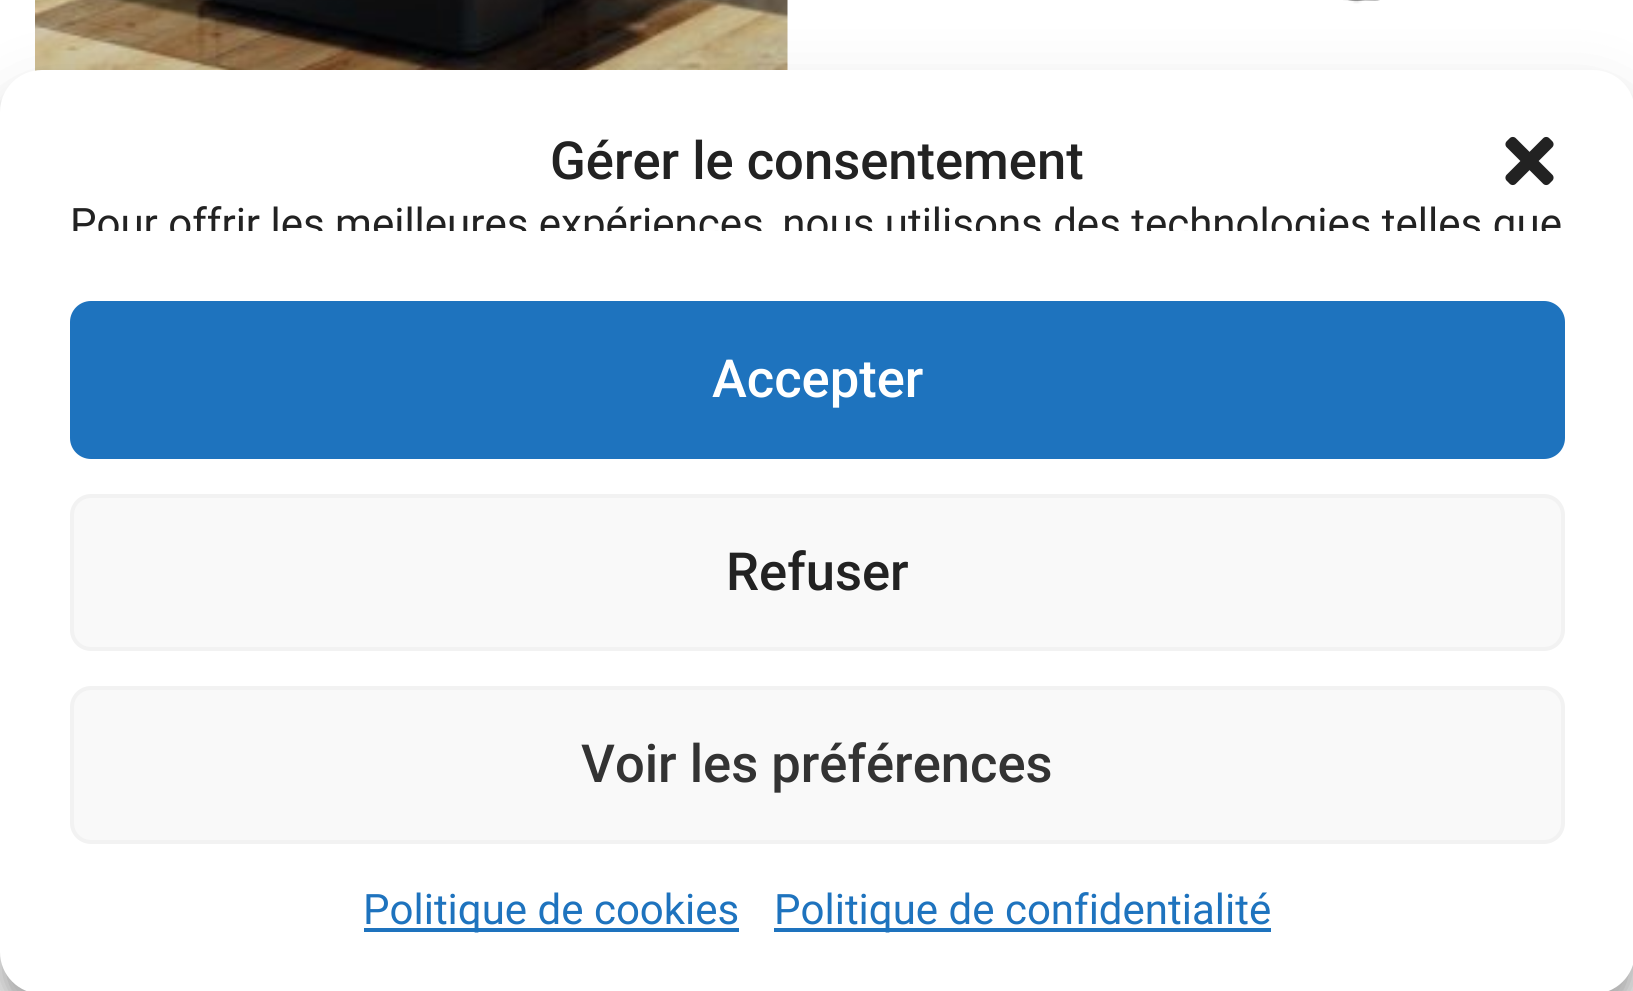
#include <cairo.h>
#include <math.h>
#include <stddef.h>


static void round_rect(cairo_t *cr, double x, double y, double w, double h, double r) {
    cairo_new_sub_path(cr);
    cairo_arc(cr, x + w - r, y + h - r, r, 0, M_PI / 2);
    cairo_arc(cr, x + r, y + h - r, r, M_PI / 2, M_PI);
    cairo_arc(cr, x + r, y + r, r, M_PI, 1.5 * M_PI);
    cairo_arc(cr, x + w - r, y + r, r, 1.5 * M_PI, 2 * M_PI);
    cairo_close_path(cr);
}

static void shadow(cairo_t *cr, double x, double y, double w, double h, double r, double blur, double alpha) {
    cairo_push_group_with_content(cr, CAIRO_CONTENT_ALPHA);
    cairo_set_operator(cr, CAIRO_OPERATOR_SOURCE);
    for (int i = 15; i >= -15 && fmin(w, h) + blur * i / 3 > 0; i -= 2) {
        double e = blur * i / 6;
        cairo_set_source_rgba(cr, 0, 0, 0, alpha * erfc((i - 1) / 8.5) / 2);
        round_rect(cr, x - e, y - e, w + 2 * e, h + 2 * e, fmax(0, fmin(r + e + blur * .6, fmin(w, h) / 2 + e)));
        cairo_fill(cr);
    }
    cairo_pattern_t *soft = cairo_pop_group(cr);
    cairo_mask(cr, soft);
    cairo_pattern_destroy(soft);
}

static void picture(cairo_t *cr, const char *path, double x, double y, double w, double h) {
    cairo_surface_t *image = cairo_image_surface_create_from_png(path);
    cairo_save(cr);
    cairo_set_source_surface(cr, image, x, y);
    cairo_rectangle(cr, x, y, w, h);
    cairo_fill(cr);
    cairo_restore(cr);
    cairo_surface_destroy(image);
}

int main(void) {
    cairo_surface_t *surface = cairo_image_surface_create(CAIRO_FORMAT_RGB24, 1633, 991);
    cairo_t *cr = cairo_create(surface);
    cairo_font_options_t *options = cairo_font_options_create();
    cairo_font_options_set_hint_metrics(options, CAIRO_HINT_METRICS_OFF);
    cairo_font_options_set_hint_style(options, CAIRO_HINT_STYLE_NONE);
    cairo_set_font_options(cr, options);
    cairo_set_miter_limit(cr, 4);
    cairo_set_source_rgb(cr, 1, 1, 1);
    cairo_paint(cr);
    picture(cr, "img1.png", 35, 0, 753, 71);
    picture(cr, "img2.png", 1343, 0, 37, 4);
    cairo_set_source_rgb(cr, 0, 0, 0);
    shadow(cr, 0, 91, 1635, 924, 42, 10.5, 0.23);
    shadow(cr, 0, 105, 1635, 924, 42, 35, 0.19);
    cairo_set_source_rgb(cr, 1, 1, 1);
    round_rect(cr, 0, 70, 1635, 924, 42);
    cairo_fill(cr);
    cairo_select_font_face(cr, "Roboto Medium", CAIRO_FONT_SLANT_NORMAL, CAIRO_FONT_WEIGHT_NORMAL);
    cairo_set_font_size(cr, 52.5);
    cairo_set_source_rgb(cr, 0.133, 0.133, 0.133);
    cairo_move_to(cr, 550, 179);
    cairo_show_text(cr, "Gérer le consentement");
    picture(cr, "img3.png", 1505, 136, 49, 50);
    cairo_save(cr);
    cairo_rectangle(cr, 70, 193, 1495, 38);
    cairo_clip(cr);
    cairo_select_font_face(cr, "Roboto", CAIRO_FONT_SLANT_NORMAL, CAIRO_FONT_WEIGHT_NORMAL);
    cairo_set_font_size(cr, 42);
    cairo_move_to(cr, 70, 238);
    cairo_show_text(cr, "Pour offrir les meilleures expériences, nous utilisons des technologies telles que");
    cairo_restore(cr);
    cairo_set_source_rgb(cr, 0.118, 0.451, 0.745);
    round_rect(cr, 72, 303, 1491, 154, 19);
    cairo_fill_preserve(cr);
    cairo_set_line_width(cr, 4);
    cairo_stroke(cr);
    cairo_set_source_rgb(cr, 1, 1, 1);
    cairo_move_to(cr, 712, 397);
    cairo_show_text(cr, "Accepter");
    cairo_set_source_rgb(cr, 0.976, 0.976, 0.976);
    round_rect(cr, 72, 496, 1491, 153, 19);
    cairo_fill_preserve(cr);
    cairo_set_source_rgb(cr, 0.949, 0.949, 0.949);
    cairo_stroke(cr);
    cairo_set_source_rgb(cr, 0.133, 0.133, 0.133);
    cairo_move_to(cr, 726, 590);
    cairo_show_text(cr, "Refuser");
    cairo_set_source_rgb(cr, 0.976, 0.976, 0.976);
    round_rect(cr, 72, 688, 1491, 154, 19);
    cairo_fill_preserve(cr);
    cairo_set_source_rgb(cr, 0.949, 0.949, 0.949);
    cairo_stroke(cr);
    cairo_set_source_rgb(cr, 0.2, 0.2, 0.2);
    cairo_move_to(cr, 581, 782);
    cairo_show_text(cr, "Voir les préférences");
    cairo_set_source_rgb(cr, 0.118, 0.451, 0.745);
    cairo_rectangle(cr, 364, 928, 375, 4);
    cairo_fill(cr);
    cairo_select_font_face(cr, "Roboto", CAIRO_FONT_SLANT_NORMAL, CAIRO_FONT_WEIGHT_NORMAL);
    cairo_set_font_size(cr, 42);
    cairo_move_to(cr, 363, 924);
    cairo_show_text(cr, "Politique de cookies");
    cairo_rectangle(cr, 774, 928, 497, 4);
    cairo_fill(cr);
    cairo_move_to(cr, 774, 924);
    cairo_show_text(cr, "Politique de confidentialité");
    cairo_surface_write_to_png(surface, "page.png");
    cairo_font_options_destroy(options);
    cairo_destroy(cr);
    cairo_surface_destroy(surface);
    return 0;
}
